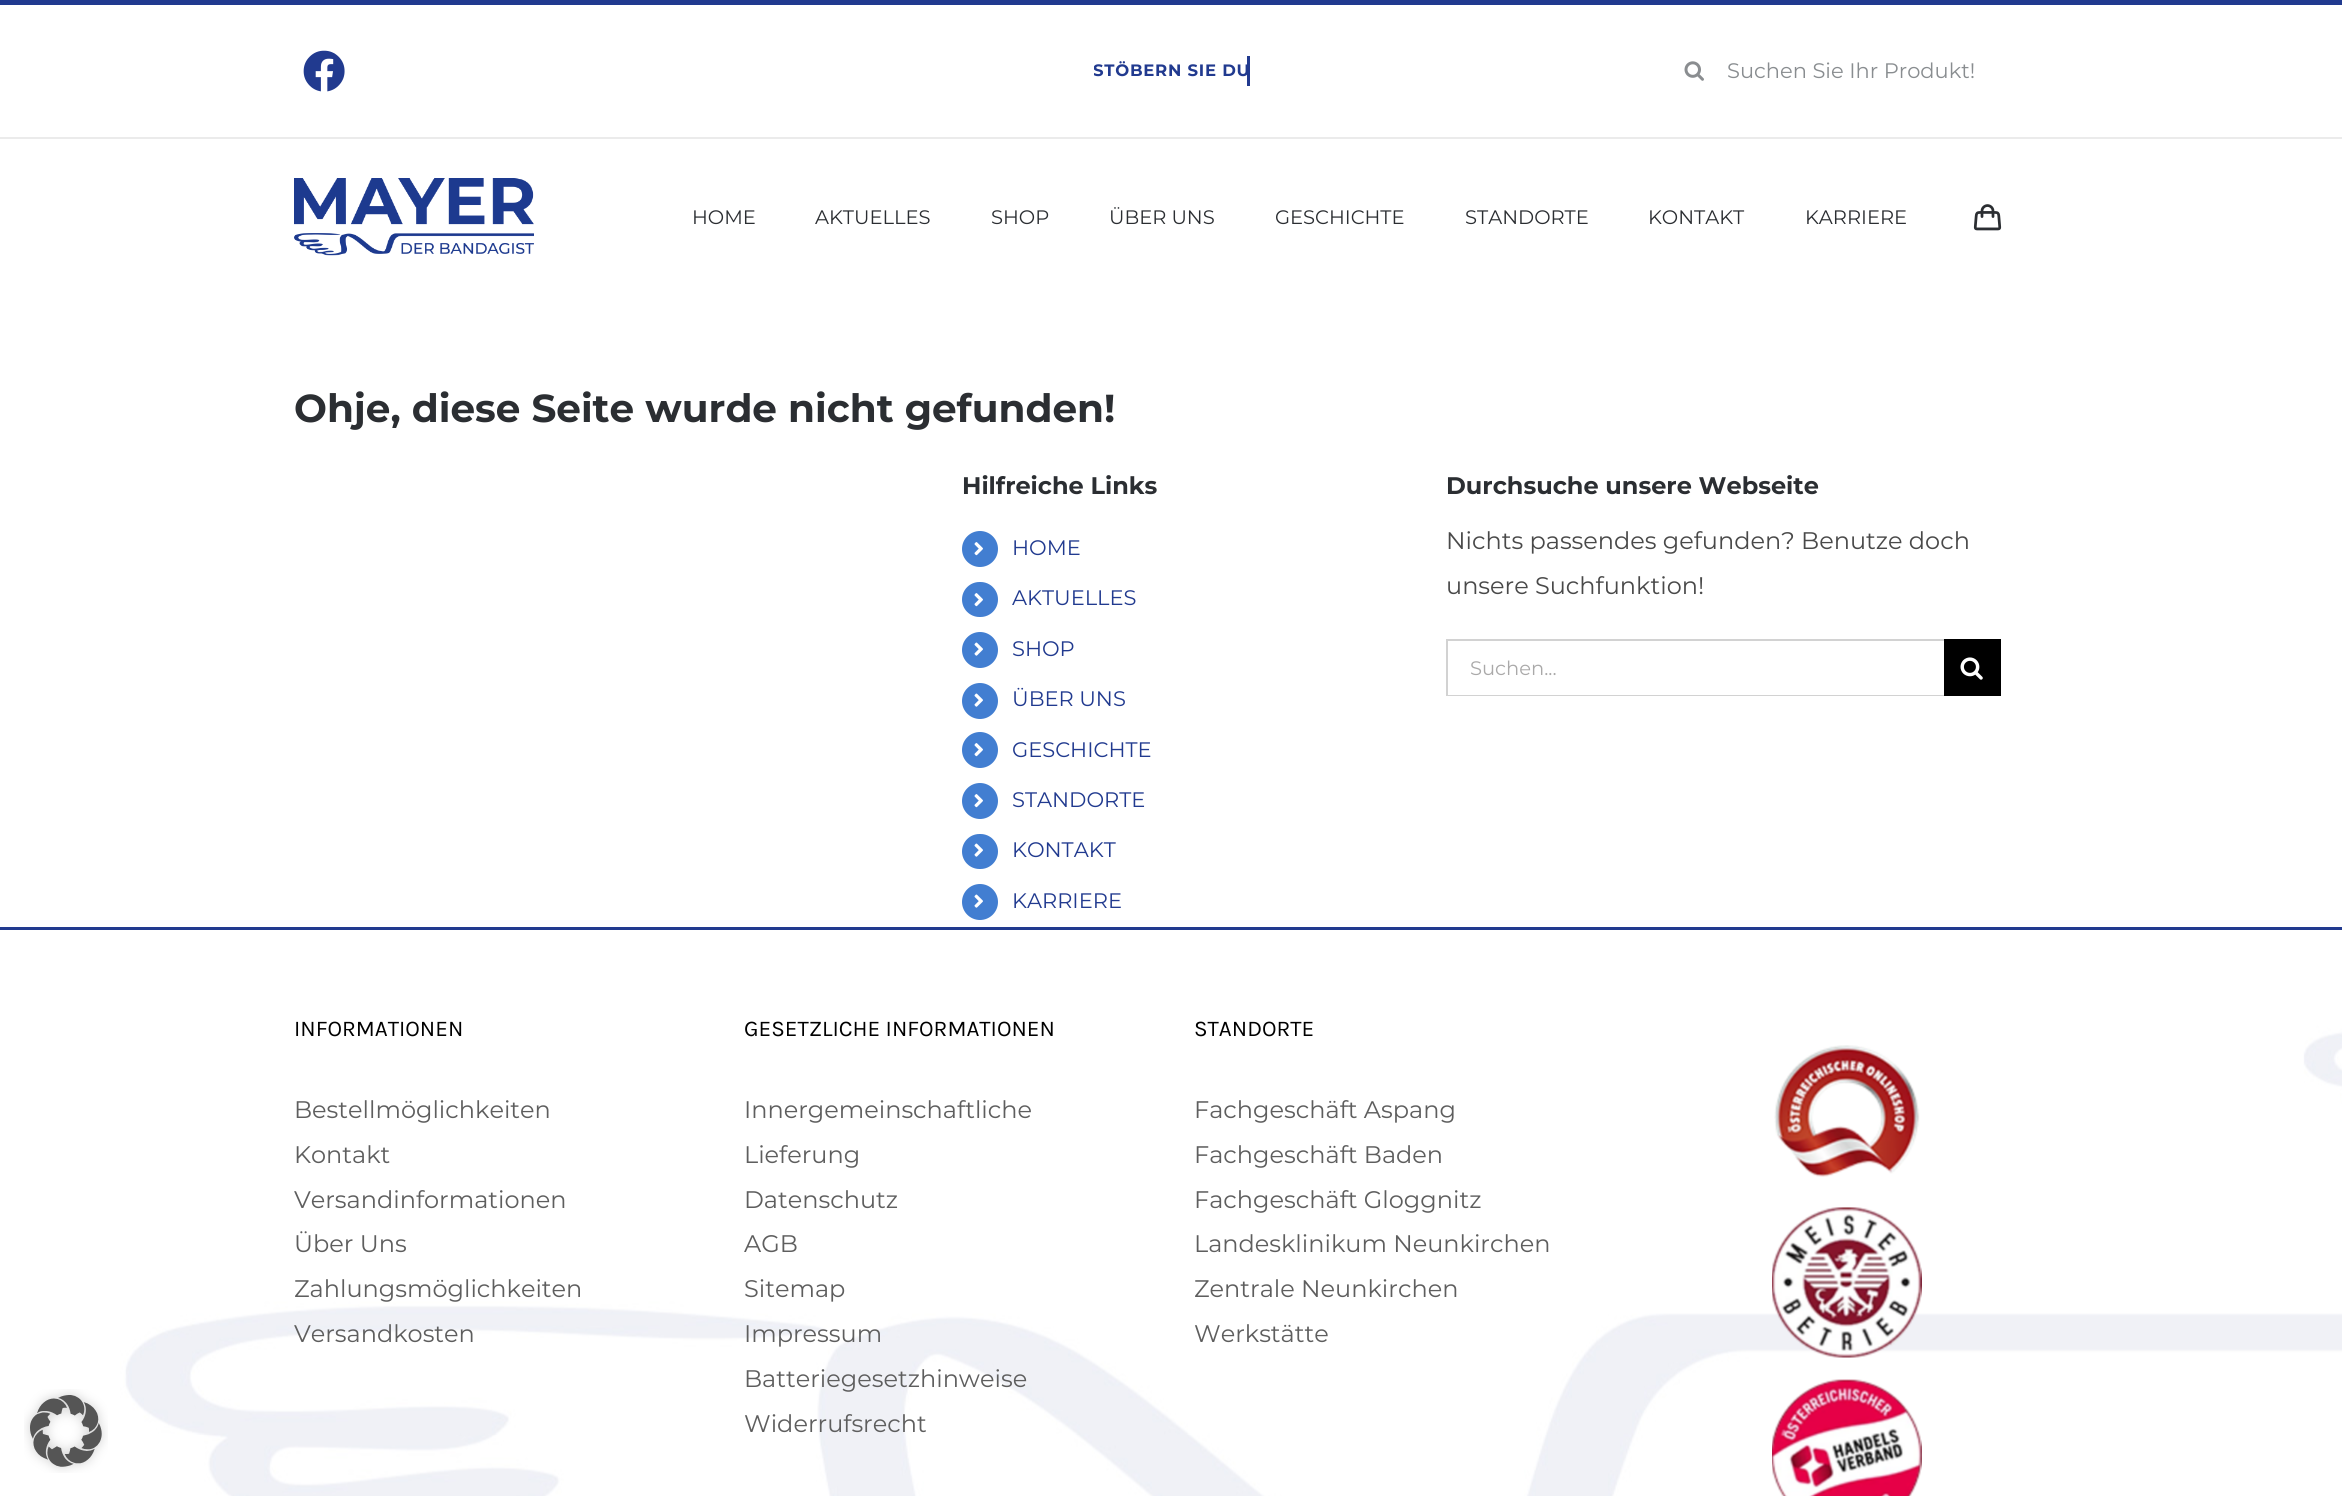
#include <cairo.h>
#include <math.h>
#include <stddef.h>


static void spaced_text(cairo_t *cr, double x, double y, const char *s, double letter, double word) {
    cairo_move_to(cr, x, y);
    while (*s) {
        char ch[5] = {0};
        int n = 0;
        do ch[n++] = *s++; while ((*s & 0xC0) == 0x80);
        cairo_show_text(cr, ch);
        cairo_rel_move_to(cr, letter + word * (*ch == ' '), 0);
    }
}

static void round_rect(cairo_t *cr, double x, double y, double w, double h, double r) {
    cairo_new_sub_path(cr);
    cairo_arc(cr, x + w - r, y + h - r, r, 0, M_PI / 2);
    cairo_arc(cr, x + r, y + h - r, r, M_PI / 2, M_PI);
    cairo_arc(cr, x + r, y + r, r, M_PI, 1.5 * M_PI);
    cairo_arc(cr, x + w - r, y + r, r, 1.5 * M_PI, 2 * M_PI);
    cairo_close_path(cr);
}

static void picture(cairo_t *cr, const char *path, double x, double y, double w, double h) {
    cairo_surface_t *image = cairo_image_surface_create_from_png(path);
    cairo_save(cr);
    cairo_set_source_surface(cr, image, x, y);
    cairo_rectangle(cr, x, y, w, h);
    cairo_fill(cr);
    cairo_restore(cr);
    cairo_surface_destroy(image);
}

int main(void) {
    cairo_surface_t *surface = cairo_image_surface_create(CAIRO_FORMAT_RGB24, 2342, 1496);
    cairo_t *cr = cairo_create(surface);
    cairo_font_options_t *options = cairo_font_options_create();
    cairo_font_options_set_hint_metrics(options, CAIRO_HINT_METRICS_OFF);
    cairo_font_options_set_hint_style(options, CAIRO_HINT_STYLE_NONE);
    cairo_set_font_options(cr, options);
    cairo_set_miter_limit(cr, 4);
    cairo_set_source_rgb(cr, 1, 1, 1);
    cairo_paint(cr);
    picture(cr, "img9.png", 0, 930, 2342, 566);
    picture(cr, "img1.png", 24, 1389, 84, 84);
    cairo_set_source_rgb(cr, 0.129, 0.227, 0.561);
    cairo_rectangle(cr, 0, 0, 2342, 5);
    cairo_fill(cr);
    picture(cr, "img2.png", 303, 50, 42, 42);
    cairo_save(cr);
    cairo_rectangle(cr, 1094, 56, 156, 30);
    cairo_clip(cr);
    cairo_select_font_face(cr, "Montserrat", CAIRO_FONT_SLANT_NORMAL, CAIRO_FONT_WEIGHT_BOLD);
    cairo_set_font_size(cr, 16.5);
    spaced_text(cr, 1093, 76, "STÖBERN SIE DU", 0.75, 0);
    cairo_restore(cr);
    cairo_rectangle(cr, 1247, 56, 3, 30);
    cairo_fill(cr);
    picture(cr, "img3.png", 1684, 61, 20, 20);
    cairo_select_font_face(cr, "Montserrat", CAIRO_FONT_SLANT_NORMAL, CAIRO_FONT_WEIGHT_NORMAL);
    cairo_set_font_size(cr, 21);
    cairo_set_source_rgb(cr, 0.537, 0.553, 0.565);
    cairo_move_to(cr, 1727, 78);
    cairo_show_text(cr, "Suchen Sie Ihr Produkt!");
    cairo_set_source_rgb(cr, 0.918, 0.918, 0.918);
    cairo_rectangle(cr, 0, 137, 2342, 2);
    cairo_fill(cr);
    picture(cr, "img4.png", 294, 178, 240, 78);
    cairo_set_font_size(cr, 19.5);
    cairo_set_source_rgb(cr, 0.169, 0.18, 0.196);
    cairo_move_to(cr, 692, 224);
    cairo_show_text(cr, "HOME");
    cairo_move_to(cr, 815, 224);
    cairo_show_text(cr, "AKTUELLES");
    cairo_move_to(cr, 991, 224);
    cairo_show_text(cr, "SHOP");
    cairo_move_to(cr, 1109, 224);
    cairo_show_text(cr, "ÜBER UNS");
    cairo_move_to(cr, 1275, 224);
    cairo_show_text(cr, "GESCHICHTE");
    cairo_move_to(cr, 1465, 224);
    cairo_show_text(cr, "STANDORTE");
    cairo_move_to(cr, 1648, 224);
    cairo_show_text(cr, "KONTAKT");
    cairo_move_to(cr, 1805, 224);
    cairo_show_text(cr, "KARRIERE");
    picture(cr, "img5.png", 1973, 204, 29, 27);
    cairo_select_font_face(cr, "Montserrat", CAIRO_FONT_SLANT_NORMAL, CAIRO_FONT_WEIGHT_BOLD);
    cairo_set_font_size(cr, 39);
    cairo_move_to(cr, 294, 422);
    cairo_show_text(cr, "Ohje, diese Seite wurde nicht gefunden!");
    cairo_set_font_size(cr, 24);
    cairo_move_to(cr, 962, 494);
    cairo_show_text(cr, "Hilfreiche Links");
    cairo_set_source_rgb(cr, 0.259, 0.494, 0.82);
    cairo_new_path(cr);
    cairo_arc(cr, 980, 549, 18, 0, 2 * M_PI);
    cairo_fill(cr);
    picture(cr, "img6.png", 974, 542, 9, 14);
    cairo_select_font_face(cr, "Montserrat", CAIRO_FONT_SLANT_NORMAL, CAIRO_FONT_WEIGHT_NORMAL);
    cairo_set_font_size(cr, 21);
    cairo_set_source_rgb(cr, 0.129, 0.227, 0.561);
    cairo_move_to(cr, 1012, 555);
    cairo_show_text(cr, "HOME");
    cairo_set_source_rgb(cr, 0.259, 0.494, 0.82);
    round_rect(cr, 962, 582, 36, 35, 17.5);
    cairo_fill(cr);
    picture(cr, "img6.png", 974, 593, 9, 14);
    cairo_set_source_rgb(cr, 0.129, 0.227, 0.561);
    cairo_move_to(cr, 1012, 605);
    cairo_show_text(cr, "AKTUELLES");
    cairo_set_source_rgb(cr, 0.259, 0.494, 0.82);
    cairo_new_path(cr);
    cairo_arc(cr, 980, 650, 18, 0, 2 * M_PI);
    cairo_fill(cr);
    picture(cr, "img7.png", 974, 642, 9, 14);
    cairo_set_source_rgb(cr, 0.129, 0.227, 0.561);
    cairo_move_to(cr, 1012, 656);
    cairo_show_text(cr, "SHOP");
    cairo_set_source_rgb(cr, 0.259, 0.494, 0.82);
    cairo_new_path(cr);
    cairo_arc(cr, 980, 701, 18, 0, 2 * M_PI);
    cairo_fill(cr);
    picture(cr, "img7.png", 974, 693, 9, 14);
    cairo_set_source_rgb(cr, 0.129, 0.227, 0.561);
    cairo_move_to(cr, 1012, 706);
    cairo_show_text(cr, "ÜBER UNS");
    cairo_set_source_rgb(cr, 0.259, 0.494, 0.82);
    cairo_new_path(cr);
    cairo_arc(cr, 980, 750, 18, 0, 2 * M_PI);
    cairo_fill(cr);
    picture(cr, "img6.png", 974, 743, 9, 14);
    cairo_set_source_rgb(cr, 0.129, 0.227, 0.561);
    cairo_move_to(cr, 1012, 757);
    cairo_show_text(cr, "GESCHICHTE");
    cairo_set_source_rgb(cr, 0.259, 0.494, 0.82);
    cairo_new_path(cr);
    cairo_arc(cr, 980, 801, 18, 0, 2 * M_PI);
    cairo_fill(cr);
    picture(cr, "img6.png", 974, 794, 9, 14);
    cairo_set_source_rgb(cr, 0.129, 0.227, 0.561);
    cairo_move_to(cr, 1012, 807);
    cairo_show_text(cr, "STANDORTE");
    cairo_set_source_rgb(cr, 0.259, 0.494, 0.82);
    round_rect(cr, 962, 834, 36, 35, 17.5);
    cairo_fill(cr);
    picture(cr, "img7.png", 974, 843, 9, 14);
    cairo_set_source_rgb(cr, 0.129, 0.227, 0.561);
    cairo_move_to(cr, 1012, 857);
    cairo_show_text(cr, "KONTAKT");
    cairo_set_source_rgb(cr, 0.259, 0.494, 0.82);
    cairo_new_path(cr);
    cairo_arc(cr, 980, 902, 18, 0, 2 * M_PI);
    cairo_fill(cr);
    picture(cr, "img7.png", 974, 894, 9, 14);
    cairo_set_source_rgb(cr, 0.129, 0.227, 0.561);
    cairo_move_to(cr, 1012, 908);
    cairo_show_text(cr, "KARRIERE");
    cairo_select_font_face(cr, "Montserrat", CAIRO_FONT_SLANT_NORMAL, CAIRO_FONT_WEIGHT_BOLD);
    cairo_set_font_size(cr, 24);
    cairo_set_source_rgb(cr, 0.169, 0.18, 0.196);
    cairo_move_to(cr, 1446, 494);
    cairo_show_text(cr, "Durchsuche unsere Webseite");
    cairo_select_font_face(cr, "Montserrat", CAIRO_FONT_SLANT_NORMAL, CAIRO_FONT_WEIGHT_NORMAL);
    cairo_set_source_rgb(cr, 0.286, 0.286, 0.286);
    cairo_move_to(cr, 1446, 549);
    cairo_show_text(cr, "Nichts passendes gefunden? Benutze doch");
    cairo_move_to(cr, 1446, 594);
    cairo_show_text(cr, "unsere Suchfunktion!");
    cairo_set_source_rgb(cr, 0.824, 0.824, 0.824);
    cairo_rectangle(cr, 1446, 639, 498, 2);
    cairo_fill(cr);
    cairo_rectangle(cr, 1446, 695, 498, 1);
    cairo_fill(cr);
    cairo_rectangle(cr, 1446, 639, 2, 57);
    cairo_fill(cr);
    cairo_set_font_size(cr, 19.5);
    cairo_set_source_rgb(cr, 0.667, 0.663, 0.663);
    cairo_move_to(cr, 1470, 675);
    cairo_show_text(cr, "Suchen...");
    cairo_set_source_rgb(cr, 0, 0, 0);
    cairo_rectangle(cr, 1944, 639, 57, 57);
    cairo_fill(cr);
    picture(cr, "img8.png", 1960, 657, 23, 23);
    cairo_set_source_rgb(cr, 0.129, 0.227, 0.561);
    cairo_rectangle(cr, 0, 927, 2342, 3);
    cairo_fill(cr);
    cairo_select_font_face(cr, "Karla", CAIRO_FONT_SLANT_NORMAL, CAIRO_FONT_WEIGHT_NORMAL);
    cairo_set_font_size(cr, 22.5);
    cairo_set_source_rgb(cr, 0, 0, 0);
    cairo_move_to(cr, 294, 1036);
    cairo_show_text(cr, "INFORMATIONEN");
    cairo_select_font_face(cr, "Montserrat", CAIRO_FONT_SLANT_NORMAL, CAIRO_FONT_WEIGHT_NORMAL);
    cairo_set_font_size(cr, 24);
    cairo_set_source_rgb(cr, 0.369, 0.369, 0.369);
    cairo_move_to(cr, 294, 1118);
    cairo_show_text(cr, "Bestellmöglichkeiten");
    cairo_move_to(cr, 294, 1163);
    cairo_show_text(cr, "Kontakt");
    cairo_move_to(cr, 294, 1208);
    cairo_show_text(cr, "Versandinformationen");
    cairo_move_to(cr, 294, 1252);
    cairo_show_text(cr, "Über Uns");
    cairo_move_to(cr, 294, 1297);
    cairo_show_text(cr, "Zahlungsmöglichkeiten");
    cairo_move_to(cr, 294, 1342);
    cairo_show_text(cr, "Versandkosten");
    cairo_select_font_face(cr, "Karla", CAIRO_FONT_SLANT_NORMAL, CAIRO_FONT_WEIGHT_NORMAL);
    cairo_set_font_size(cr, 22.5);
    cairo_set_source_rgb(cr, 0, 0, 0);
    cairo_move_to(cr, 744, 1036);
    cairo_show_text(cr, "GESETZLICHE INFORMATIONEN");
    cairo_select_font_face(cr, "Montserrat", CAIRO_FONT_SLANT_NORMAL, CAIRO_FONT_WEIGHT_NORMAL);
    cairo_set_font_size(cr, 24);
    cairo_set_source_rgb(cr, 0.369, 0.369, 0.369);
    cairo_move_to(cr, 744, 1118);
    cairo_show_text(cr, "Innergemeinschaftliche");
    cairo_move_to(cr, 744, 1163);
    cairo_show_text(cr, "Lieferung");
    cairo_move_to(cr, 744, 1208);
    cairo_show_text(cr, "Datenschutz");
    cairo_move_to(cr, 744, 1252);
    cairo_show_text(cr, "AGB");
    cairo_move_to(cr, 744, 1297);
    cairo_show_text(cr, "Sitemap");
    cairo_move_to(cr, 744, 1342);
    cairo_show_text(cr, "Impressum");
    cairo_move_to(cr, 744, 1387);
    cairo_show_text(cr, "Batteriegesetzhinweise");
    cairo_move_to(cr, 744, 1432);
    cairo_show_text(cr, "Widerrufsrecht");
    cairo_select_font_face(cr, "Karla", CAIRO_FONT_SLANT_NORMAL, CAIRO_FONT_WEIGHT_NORMAL);
    cairo_set_font_size(cr, 22.5);
    cairo_set_source_rgb(cr, 0, 0, 0);
    cairo_move_to(cr, 1194, 1036);
    cairo_show_text(cr, "STANDORTE");
    cairo_select_font_face(cr, "Montserrat", CAIRO_FONT_SLANT_NORMAL, CAIRO_FONT_WEIGHT_NORMAL);
    cairo_set_font_size(cr, 24);
    cairo_set_source_rgb(cr, 0.369, 0.369, 0.369);
    cairo_move_to(cr, 1194, 1118);
    cairo_show_text(cr, "Fachgeschäft Aspang");
    cairo_move_to(cr, 1194, 1163);
    cairo_show_text(cr, "Fachgeschäft Baden");
    cairo_move_to(cr, 1194, 1208);
    cairo_show_text(cr, "Fachgeschäft Gloggnitz");
    cairo_move_to(cr, 1194, 1252);
    cairo_show_text(cr, "Landesklinikum Neunkirchen");
    cairo_move_to(cr, 1194, 1297);
    cairo_show_text(cr, "Zentrale Neunkirchen");
    cairo_move_to(cr, 1194, 1342);
    cairo_show_text(cr, "Werkstätte");
    picture(cr, "img10.png", 1774, 1045, 146, 132);
    picture(cr, "img11.png", 1772, 1207, 150, 151);
    picture(cr, "img12.png", 1772, 1379, 150, 117);
    cairo_surface_write_to_png(surface, "page.png");
    cairo_font_options_destroy(options);
    cairo_destroy(cr);
    cairo_surface_destroy(surface);
    return 0;
}
